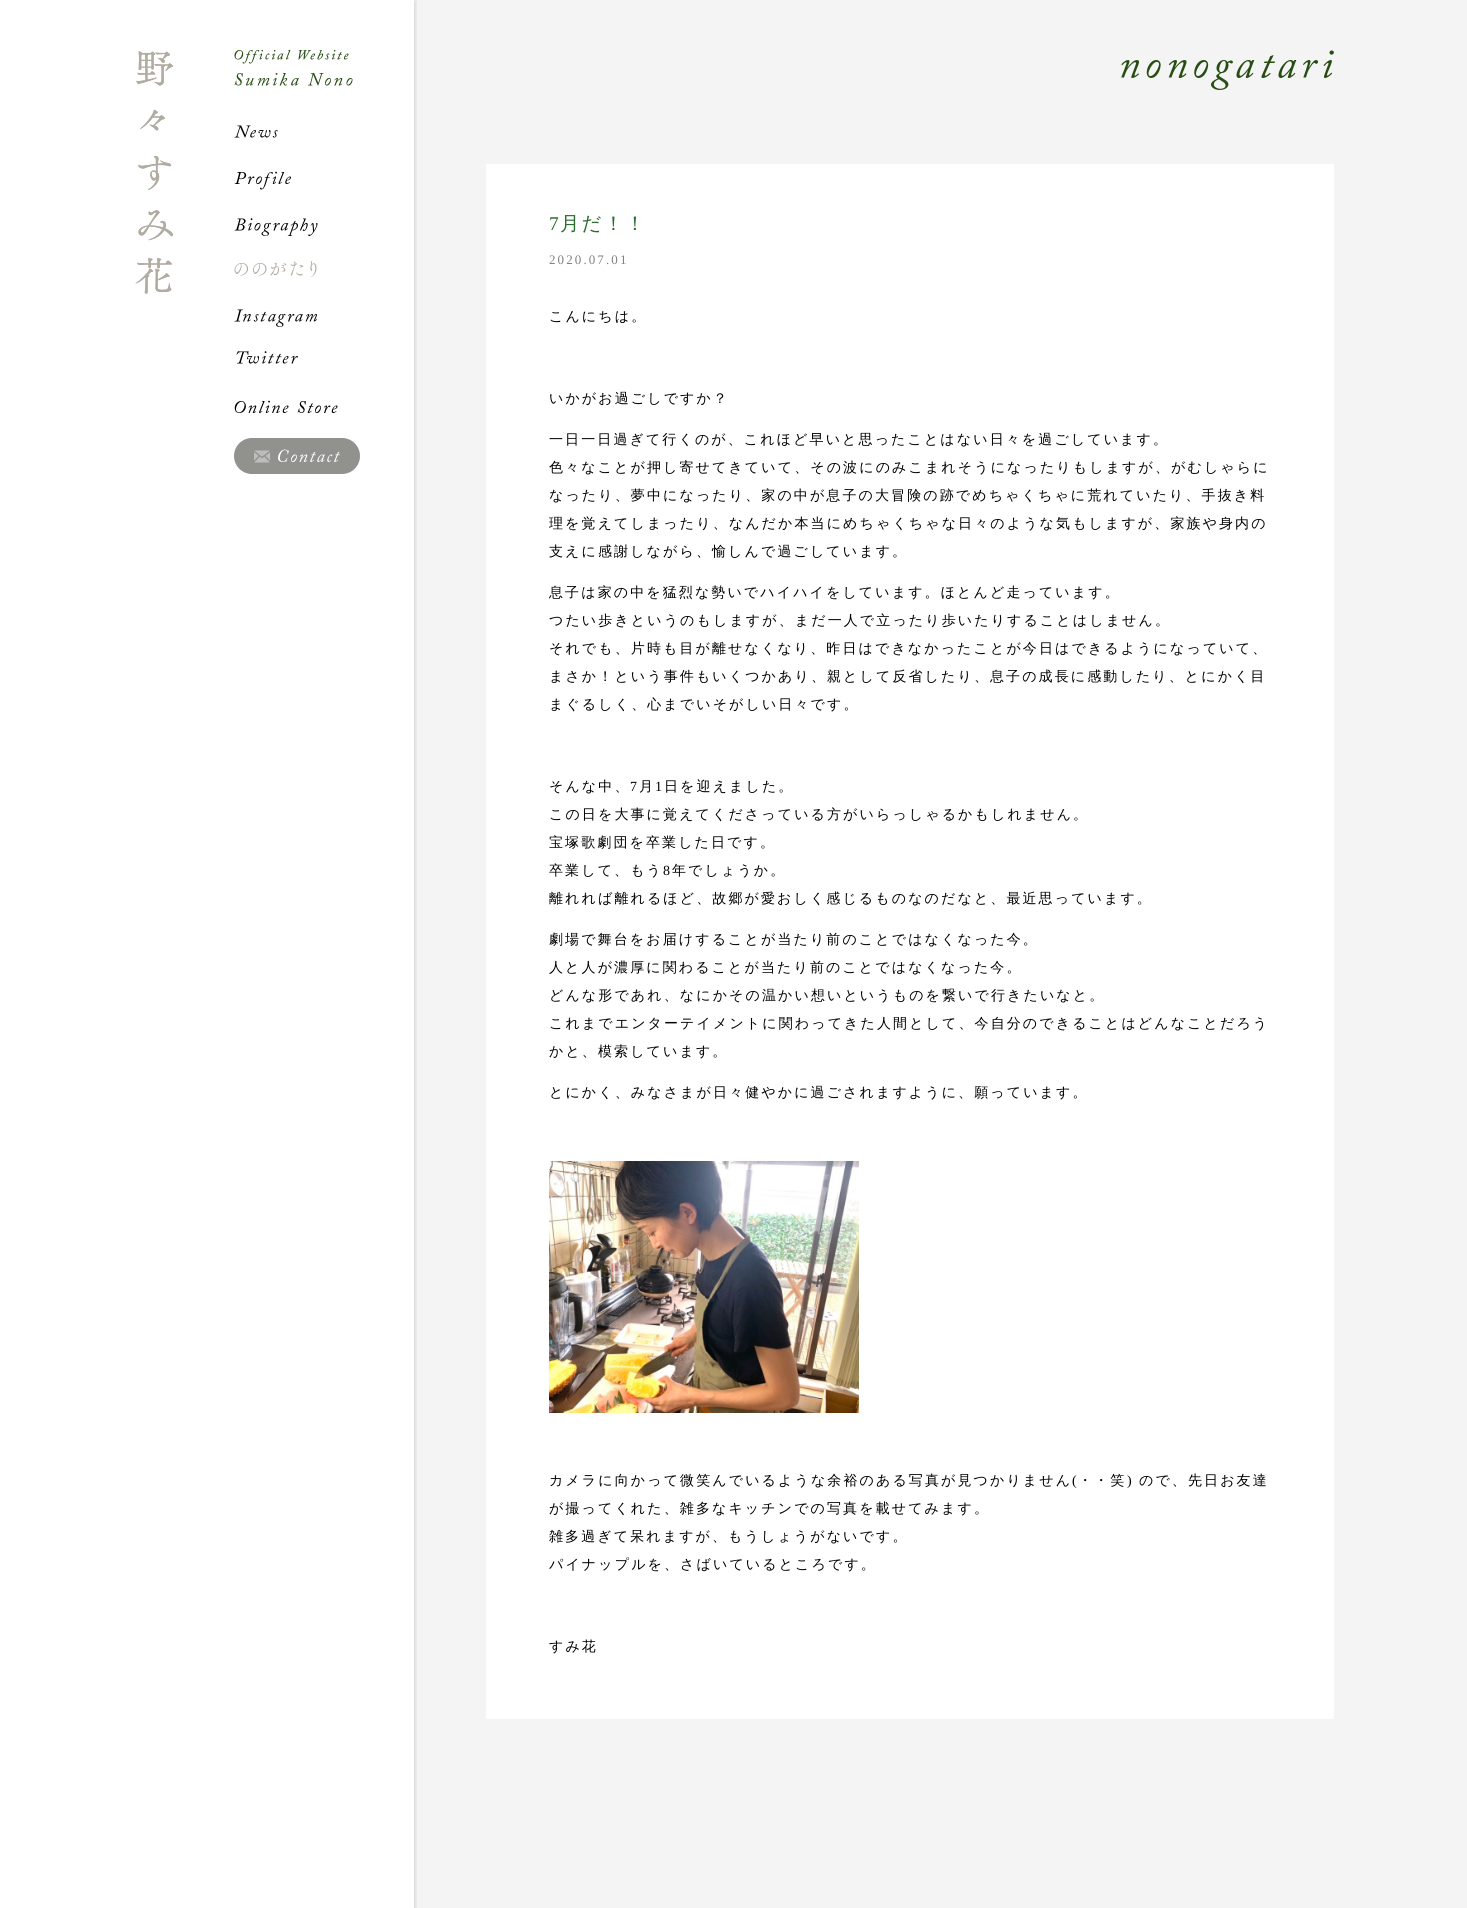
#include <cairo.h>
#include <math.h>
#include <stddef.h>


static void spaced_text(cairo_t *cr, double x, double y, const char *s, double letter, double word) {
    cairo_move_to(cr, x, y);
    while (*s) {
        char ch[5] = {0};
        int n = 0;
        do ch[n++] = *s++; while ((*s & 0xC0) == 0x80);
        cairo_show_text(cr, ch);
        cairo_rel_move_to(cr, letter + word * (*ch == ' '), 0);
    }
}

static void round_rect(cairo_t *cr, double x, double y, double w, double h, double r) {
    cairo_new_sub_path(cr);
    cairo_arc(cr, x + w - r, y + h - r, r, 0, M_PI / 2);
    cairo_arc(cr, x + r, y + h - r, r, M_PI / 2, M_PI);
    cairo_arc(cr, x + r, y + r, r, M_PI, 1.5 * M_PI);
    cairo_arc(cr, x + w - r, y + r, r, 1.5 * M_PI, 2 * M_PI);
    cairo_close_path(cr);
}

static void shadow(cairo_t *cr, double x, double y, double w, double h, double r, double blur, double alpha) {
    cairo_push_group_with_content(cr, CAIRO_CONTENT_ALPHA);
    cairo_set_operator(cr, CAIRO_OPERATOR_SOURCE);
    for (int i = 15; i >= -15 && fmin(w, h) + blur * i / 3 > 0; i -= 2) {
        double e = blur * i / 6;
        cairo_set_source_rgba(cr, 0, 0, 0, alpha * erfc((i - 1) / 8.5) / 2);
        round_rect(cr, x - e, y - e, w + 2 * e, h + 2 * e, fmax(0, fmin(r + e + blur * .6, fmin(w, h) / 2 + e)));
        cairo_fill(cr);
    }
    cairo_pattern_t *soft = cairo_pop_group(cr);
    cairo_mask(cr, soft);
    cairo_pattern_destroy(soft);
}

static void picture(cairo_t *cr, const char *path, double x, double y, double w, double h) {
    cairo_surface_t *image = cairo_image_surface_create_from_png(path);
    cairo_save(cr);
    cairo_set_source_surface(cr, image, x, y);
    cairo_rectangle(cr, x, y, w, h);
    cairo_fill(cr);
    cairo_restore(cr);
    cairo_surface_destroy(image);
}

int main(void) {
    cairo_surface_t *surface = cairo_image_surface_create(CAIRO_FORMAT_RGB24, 1467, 1908);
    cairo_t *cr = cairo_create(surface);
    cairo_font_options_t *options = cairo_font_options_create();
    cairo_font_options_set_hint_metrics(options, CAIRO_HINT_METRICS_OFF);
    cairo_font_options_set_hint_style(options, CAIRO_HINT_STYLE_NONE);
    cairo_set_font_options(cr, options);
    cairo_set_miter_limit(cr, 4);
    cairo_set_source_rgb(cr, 1, 1, 1);
    cairo_paint(cr);
    cairo_set_source_rgb(cr, 0.953, 0.957, 0.953);
    cairo_rectangle(cr, 414, 0, 1053, 1908);
    cairo_fill(cr);
    cairo_save(cr);
    cairo_rectangle(cr, 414, 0, 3, 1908);
    cairo_clip(cr);
    cairo_set_source_rgb(cr, 0, 0, 0);
    shadow(cr, 138, 1, 278, 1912, 0, 1.5, 0.1);
    cairo_restore(cr);
    picture(cr, "img1.png", 135, 51, 38, 243);
    picture(cr, "img2.png", 135, 51, 38, 243);
    picture(cr, "img3.png", 234, 50, 119, 36);
    picture(cr, "img4.png", 234, 125, 44, 13);
    picture(cr, "img5.png", 234, 171, 57, 19);
    picture(cr, "img6.png", 234, 218, 84, 18);
    picture(cr, "img7.png", 234, 261, 83, 16);
    picture(cr, "img8.png", 234, 309, 84, 18);
    picture(cr, "img9.png", 236, 351, 62, 13);
    picture(cr, "img10.png", 234, 400, 104, 13);
    cairo_set_source_rgb(cr, 0.569, 0.569, 0.557);
    round_rect(cr, 234, 438, 126, 36, 18);
    cairo_fill(cr);
    picture(cr, "img11.png", 254, 449, 86, 14);
    picture(cr, "img12.png", 1121, 50, 213, 40);
    cairo_set_source_rgb(cr, 1, 1, 1);
    cairo_rectangle(cr, 486, 164, 848, 1555);
    cairo_fill(cr);
    cairo_select_font_face(cr, "Liberation Serif", CAIRO_FONT_SLANT_NORMAL, CAIRO_FONT_WEIGHT_NORMAL);
    cairo_set_font_size(cr, 19.5);
    cairo_set_source_rgb(cr, 0.169, 0.42, 0.18);
    spaced_text(cr, 549, 230, "7", 2.1, 0);
    cairo_select_font_face(cr, "WenQuanYi Zen Hei Medium", CAIRO_FONT_SLANT_NORMAL, CAIRO_FONT_WEIGHT_NORMAL);
    spaced_text(cr, 560, 230, "月だ！！", 2.1, 0);
    cairo_select_font_face(cr, "Liberation Serif", CAIRO_FONT_SLANT_NORMAL, CAIRO_FONT_WEIGHT_NORMAL);
    cairo_set_font_size(cr, 13);
    cairo_set_source_rgb(cr, 0.51, 0.51, 0.51);
    spaced_text(cr, 549, 264, "2020.07.01", 2.1, 0);
    cairo_select_font_face(cr, "WenQuanYi Zen Hei Medium", CAIRO_FONT_SLANT_NORMAL, CAIRO_FONT_WEIGHT_NORMAL);
    cairo_set_font_size(cr, 14);
    cairo_set_source_rgb(cr, 0, 0, 0);
    spaced_text(cr, 549, 321, "こんにちは。", 2.1, 0);
    spaced_text(cr, 549, 403, "いかがお過ごしですか？", 2.1, 0);
    spaced_text(cr, 549, 444, "一日一日過ぎて行くのが、これほど早いと思ったことはない日々を過ごしています。", 2.1, 0);
    spaced_text(cr, 549, 472, "色々なことが押し寄せてきていて、その波にのみこまれそうになったりもしますが、がむしゃらに", 2.1, 0);
    spaced_text(cr, 549, 500, "なったり、夢中になったり、家の中が息子の大冒険の跡でめちゃくちゃに荒れていたり、手抜き料", 2.1, 0);
    spaced_text(cr, 549, 528, "理を覚えてしまったり、なんだか本当にめちゃくちゃな日々のような気もしますが、家族や身内の", 2.1, 0);
    spaced_text(cr, 549, 556, "支えに感謝しながら、愉しんで過ごしています。", 2.1, 0);
    spaced_text(cr, 549, 597, "息子は家の中を猛烈な勢いでハイハイをしています。ほとんど走っています。", 2.1, 0);
    spaced_text(cr, 549, 625, "つたい歩きというのもしますが、まだ一人で立ったり歩いたりすることはしません。", 2.1, 0);
    spaced_text(cr, 549, 653, "それでも、片時も目が離せなくなり、昨日はできなかったことが今日はできるようになっていて、", 2.1, 0);
    spaced_text(cr, 549, 681, "まさか！という事件もいくつかあり、親として反省したり、息子の成長に感動したり、とにかく目", 2.1, 0);
    spaced_text(cr, 549, 709, "まぐるしく、心までいそがしい日々です。", 2.1, 0);
    spaced_text(cr, 549, 791, "そんな中、", 2.1, 0);
    cairo_select_font_face(cr, "Liberation Serif", CAIRO_FONT_SLANT_NORMAL, CAIRO_FONT_WEIGHT_NORMAL);
    spaced_text(cr, 630, 791, "7", 2.1, 0);
    cairo_select_font_face(cr, "WenQuanYi Zen Hei Medium", CAIRO_FONT_SLANT_NORMAL, CAIRO_FONT_WEIGHT_NORMAL);
    spaced_text(cr, 639, 791, "月", 2.1, 0);
    cairo_select_font_face(cr, "Liberation Serif", CAIRO_FONT_SLANT_NORMAL, CAIRO_FONT_WEIGHT_NORMAL);
    spaced_text(cr, 655, 791, "1", 2.1, 0);
    cairo_select_font_face(cr, "WenQuanYi Zen Hei Medium", CAIRO_FONT_SLANT_NORMAL, CAIRO_FONT_WEIGHT_NORMAL);
    spaced_text(cr, 664, 791, "日を迎えました。", 2.1, 0);
    spaced_text(cr, 549, 819, "この日を大事に覚えてくださっている方がいらっしゃるかもしれません。", 2.1, 0);
    spaced_text(cr, 549, 847, "宝塚歌劇団を卒業した日です。", 2.1, 0);
    spaced_text(cr, 549, 875, "卒業して、もう", 2.1, 0);
    cairo_select_font_face(cr, "Liberation Serif", CAIRO_FONT_SLANT_NORMAL, CAIRO_FONT_WEIGHT_NORMAL);
    spaced_text(cr, 663, 875, "8", 2.1, 0);
    cairo_select_font_face(cr, "WenQuanYi Zen Hei Medium", CAIRO_FONT_SLANT_NORMAL, CAIRO_FONT_WEIGHT_NORMAL);
    spaced_text(cr, 672, 875, "年でしょうか。", 2.1, 0);
    spaced_text(cr, 549, 903, "離れれば離れるほど、故郷が愛おしく感じるものなのだなと、最近思っています。", 2.1, 0);
    spaced_text(cr, 549, 944, "劇場で舞台をお届けすることが当たり前のことではなくなった今。", 2.1, 0);
    spaced_text(cr, 549, 972, "人と人が濃厚に関わることが当たり前のことではなくなった今。", 2.1, 0);
    spaced_text(cr, 549, 1000, "どんな形であれ、なにかその温かい想いというものを繋いで行きたいなと。", 2.1, 0);
    spaced_text(cr, 549, 1028, "これまでエンターテイメントに関わってきた人間として、今自分のできることはどんなことだろう", 2.1, 0);
    spaced_text(cr, 549, 1056, "かと、模索しています。", 2.1, 0);
    spaced_text(cr, 549, 1097, "とにかく、みなさまが日々健やかに過ごされますように、願っています。", 2.1, 0);
    picture(cr, "img13.png", 549, 1161, 310, 252);
    spaced_text(cr, 549, 1485, "カメラに向かって微笑んでいるような余裕のある写真が見つかりません", 2.1, 0);
    cairo_select_font_face(cr, "Liberation Serif", CAIRO_FONT_SLANT_NORMAL, CAIRO_FONT_WEIGHT_NORMAL);
    spaced_text(cr, 1072, 1485, "(", 2.1, 0);
    cairo_select_font_face(cr, "WenQuanYi Zen Hei Medium", CAIRO_FONT_SLANT_NORMAL, CAIRO_FONT_WEIGHT_NORMAL);
    spaced_text(cr, 1078, 1485, "・・笑", 2.1, 0);
    cairo_select_font_face(cr, "Liberation Serif", CAIRO_FONT_SLANT_NORMAL, CAIRO_FONT_WEIGHT_NORMAL);
    spaced_text(cr, 1127, 1485, ")", 2.1, 0);
    cairo_select_font_face(cr, "WenQuanYi Zen Hei Medium", CAIRO_FONT_SLANT_NORMAL, CAIRO_FONT_WEIGHT_NORMAL);
    spaced_text(cr, 1139, 1485, "ので、先日お友達", 2.1, 0);
    spaced_text(cr, 549, 1513, "が撮ってくれた、雑多なキッチンでの写真を載せてみます。", 2.1, 0);
    spaced_text(cr, 549, 1541, "雑多過ぎて呆れますが、もうしょうがないです。", 2.1, 0);
    spaced_text(cr, 549, 1569, "パイナップルを、さばいているところです。", 2.1, 0);
    spaced_text(cr, 549, 1651, "すみ花", 2.1, 0);
    cairo_surface_write_to_png(surface, "page.png");
    cairo_font_options_destroy(options);
    cairo_destroy(cr);
    cairo_surface_destroy(surface);
    return 0;
}
